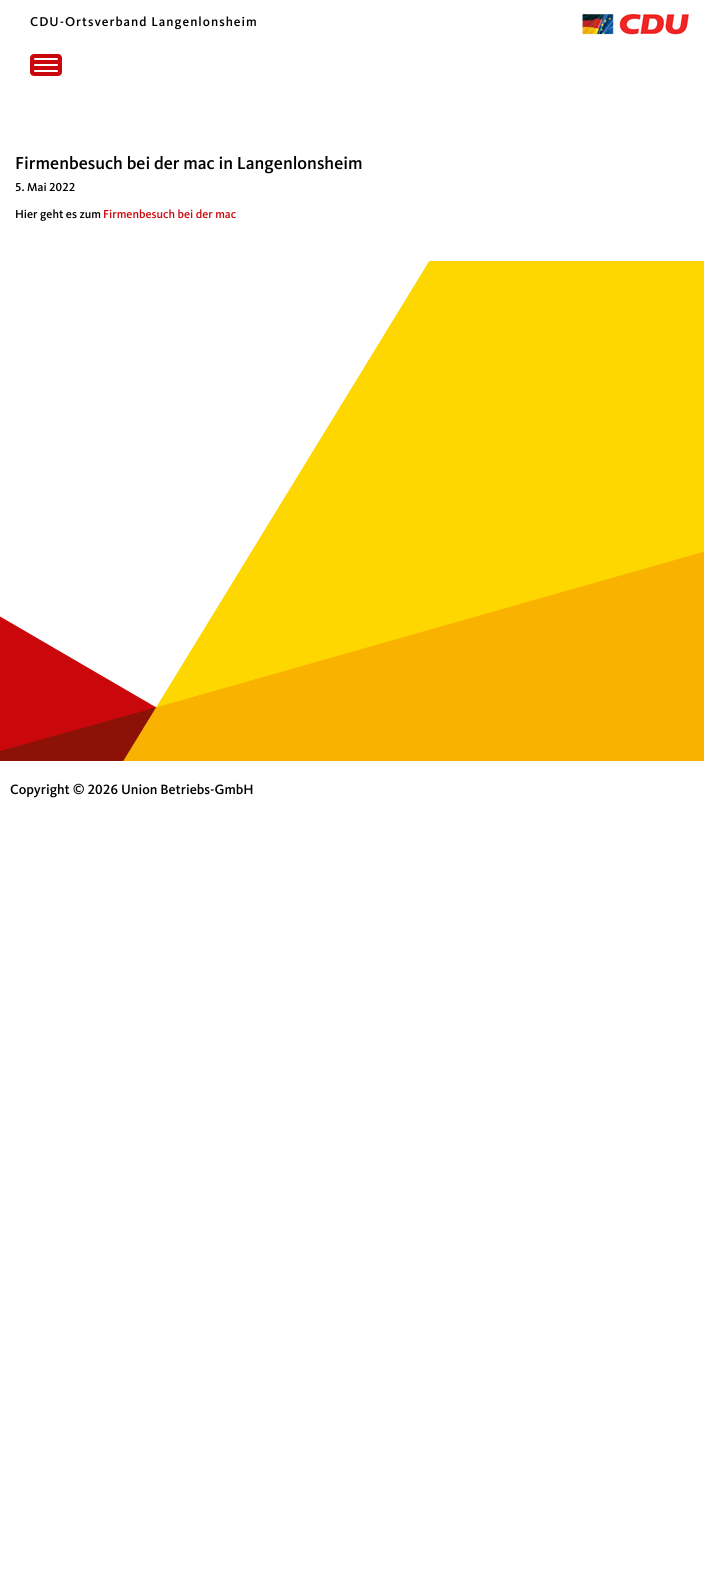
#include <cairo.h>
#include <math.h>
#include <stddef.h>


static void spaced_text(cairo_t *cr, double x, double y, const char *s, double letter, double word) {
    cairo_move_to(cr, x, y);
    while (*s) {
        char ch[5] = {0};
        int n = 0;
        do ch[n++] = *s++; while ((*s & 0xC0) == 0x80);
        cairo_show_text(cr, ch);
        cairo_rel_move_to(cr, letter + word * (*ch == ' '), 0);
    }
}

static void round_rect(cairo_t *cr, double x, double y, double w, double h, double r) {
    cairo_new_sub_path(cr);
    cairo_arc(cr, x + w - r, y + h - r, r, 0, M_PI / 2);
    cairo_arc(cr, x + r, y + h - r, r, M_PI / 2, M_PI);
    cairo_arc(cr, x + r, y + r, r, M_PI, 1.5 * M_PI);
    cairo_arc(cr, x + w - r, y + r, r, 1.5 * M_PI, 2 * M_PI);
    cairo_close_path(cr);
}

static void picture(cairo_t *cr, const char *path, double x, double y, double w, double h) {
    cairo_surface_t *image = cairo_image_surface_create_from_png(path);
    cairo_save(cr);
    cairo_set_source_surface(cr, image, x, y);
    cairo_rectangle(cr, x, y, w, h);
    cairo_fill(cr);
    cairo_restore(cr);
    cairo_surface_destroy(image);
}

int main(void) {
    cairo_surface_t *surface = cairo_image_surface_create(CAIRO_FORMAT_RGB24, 704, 1573);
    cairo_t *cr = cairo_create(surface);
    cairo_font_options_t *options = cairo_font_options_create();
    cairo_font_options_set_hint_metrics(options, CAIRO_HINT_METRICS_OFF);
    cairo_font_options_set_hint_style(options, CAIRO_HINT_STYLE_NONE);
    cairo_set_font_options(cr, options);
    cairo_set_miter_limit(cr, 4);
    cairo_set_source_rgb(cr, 1, 1, 1);
    cairo_paint(cr);
    cairo_select_font_face(cr, "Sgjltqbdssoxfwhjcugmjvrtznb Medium", CAIRO_FONT_SLANT_NORMAL, CAIRO_FONT_WEIGHT_NORMAL);
    cairo_set_font_size(cr, 13.25);
    cairo_set_source_rgb(cr, 0, 0, 0);
    spaced_text(cr, 30, 26, "CDU-Ortsverband Langenlonsheim", 1, 0);
    picture(cr, "img1.png", 582, 14, 107, 21);
    cairo_set_source_rgb(cr, 0.792, 0.031, 0.047);
    round_rect(cr, 30, 54, 32, 22, 4);
    cairo_fill(cr);
    cairo_set_source_rgb(cr, 1, 1, 1);
    round_rect(cr, 34, 58, 24, 2, 1);
    cairo_fill(cr);
    round_rect(cr, 34, 64, 24, 2, 1);
    cairo_fill(cr);
    round_rect(cr, 34, 70, 24, 2, 1);
    cairo_fill(cr);
    cairo_set_font_size(cr, 18);
    cairo_set_source_rgb(cr, 0, 0, 0);
    cairo_move_to(cr, 15, 169);
    cairo_show_text(cr, "Firmenbesuch bei der mac in Langenlonsheim");
    cairo_set_font_size(cr, 12);
    cairo_move_to(cr, 15, 191);
    cairo_show_text(cr, "5. Mai 2022");
    cairo_move_to(cr, 15, 218);
    cairo_show_text(cr, "Hier geht es zum");
    cairo_set_source_rgb(cr, 0.792, 0.031, 0.047);
    cairo_move_to(cr, 103, 218);
    cairo_show_text(cr, "Firmenbesuch bei der mac");
    picture(cr, "img2.png", 0, 261, 704, 500);
    cairo_set_font_size(cr, 14);
    cairo_set_source_rgb(cr, 0, 0, 0);
    cairo_move_to(cr, 10, 794);
    cairo_show_text(cr, "Copyright © 2026 Union Betriebs-GmbH");
    cairo_surface_write_to_png(surface, "page.png");
    cairo_font_options_destroy(options);
    cairo_destroy(cr);
    cairo_surface_destroy(surface);
    return 0;
}
